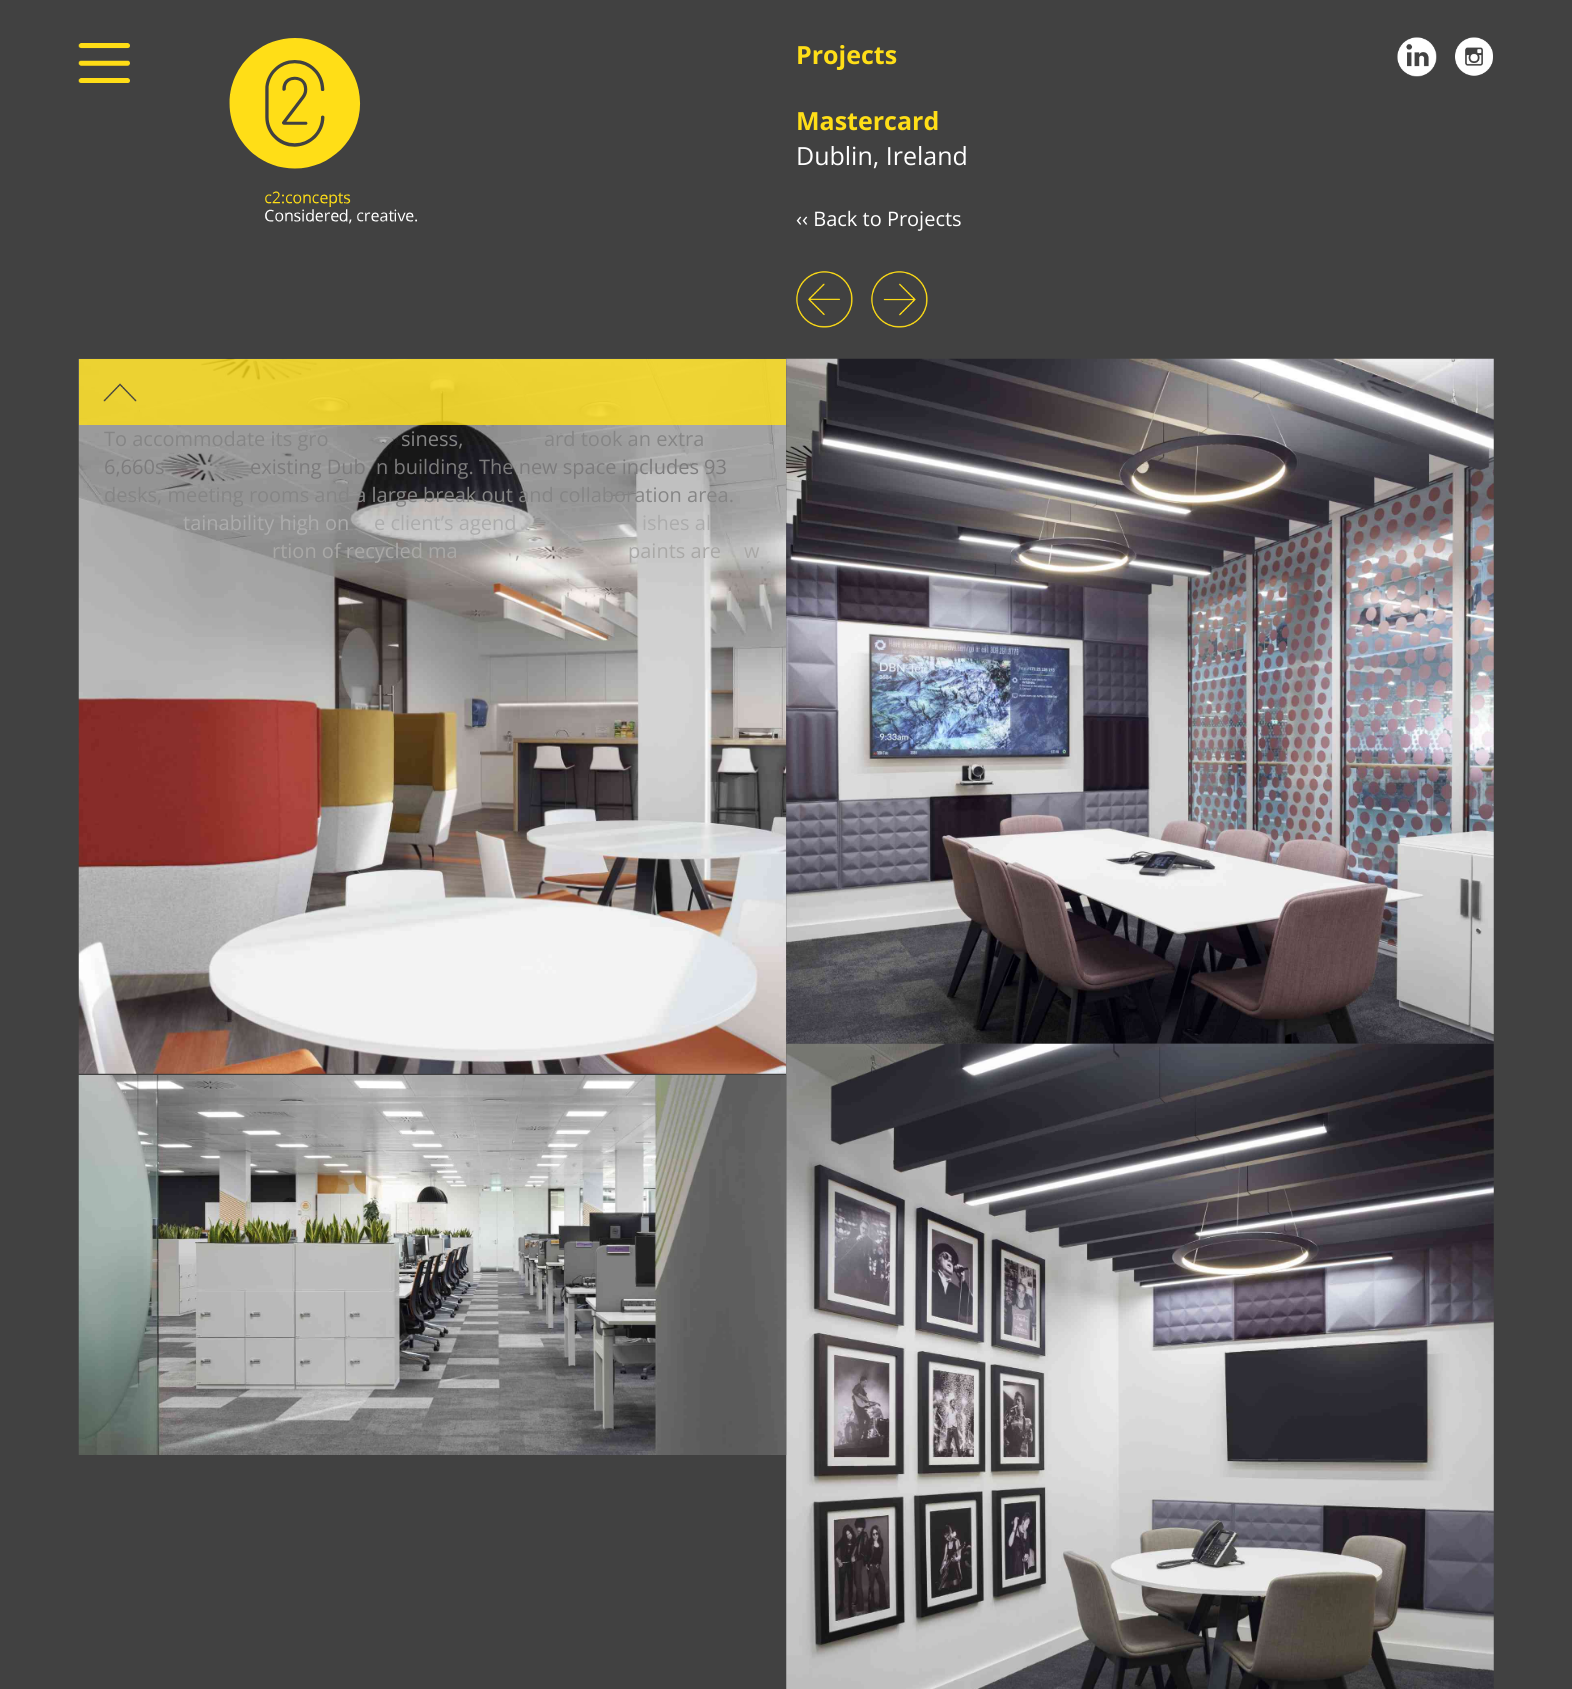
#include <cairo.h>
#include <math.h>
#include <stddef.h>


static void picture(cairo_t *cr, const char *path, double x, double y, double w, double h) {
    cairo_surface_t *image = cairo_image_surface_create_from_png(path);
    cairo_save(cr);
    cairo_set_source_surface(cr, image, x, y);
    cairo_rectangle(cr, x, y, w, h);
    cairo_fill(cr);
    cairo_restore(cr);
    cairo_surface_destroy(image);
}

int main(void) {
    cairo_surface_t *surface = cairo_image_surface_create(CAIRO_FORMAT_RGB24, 1572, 1689);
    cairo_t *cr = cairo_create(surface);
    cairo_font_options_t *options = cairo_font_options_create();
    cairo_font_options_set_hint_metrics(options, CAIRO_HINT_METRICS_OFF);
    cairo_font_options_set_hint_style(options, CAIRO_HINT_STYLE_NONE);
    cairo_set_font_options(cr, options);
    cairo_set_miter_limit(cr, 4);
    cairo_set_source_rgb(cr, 0.255, 0.255, 0.255);
    cairo_paint(cr);
    picture(cr, "img1.png", 78, 43, 52, 40);
    picture(cr, "img2.png", 229, 38, 189, 186);
    cairo_select_font_face(cr, "Open Sans", CAIRO_FONT_SLANT_NORMAL, CAIRO_FONT_WEIGHT_BOLD);
    cairo_set_font_size(cr, 25);
    cairo_set_source_rgb(cr, 1, 0.871, 0.09);
    cairo_move_to(cr, 796, 64);
    cairo_show_text(cr, "Projects");
    cairo_move_to(cr, 796, 130);
    cairo_show_text(cr, "Mastercard");
    cairo_select_font_face(cr, "Open Sans", CAIRO_FONT_SLANT_NORMAL, CAIRO_FONT_WEIGHT_NORMAL);
    cairo_set_source_rgb(cr, 1, 1, 1);
    cairo_move_to(cr, 796, 165);
    cairo_show_text(cr, "Dublin, Ireland");
    cairo_set_font_size(cr, 20);
    cairo_move_to(cr, 796, 226);
    cairo_show_text(cr, "‹‹ Back to Projects");
    picture(cr, "img3.png", 796, 271, 57, 57);
    picture(cr, "img4.png", 871, 271, 57, 57);
    picture(cr, "img5.png", 1397, 37, 40, 40);
    picture(cr, "img6.png", 1455, 37, 38, 39);
    picture(cr, "img7.png", 78, 358, 709, 716);
    cairo_set_source_rgba(cr, 1, 0.871, 0.09, 0.8);
    cairo_rectangle(cr, 79, 359, 707, 66);
    cairo_fill(cr);
    picture(cr, "img8.png", 103, 383, 34, 19);
    cairo_set_source_rgb(cr, 0.522, 0.522, 0.522);
    cairo_move_to(cr, 104, 446);
    cairo_show_text(cr, "To accommodate its gro");
    cairo_move_to(cr, 401, 446);
    cairo_show_text(cr, "siness,");
    cairo_move_to(cr, 544, 446);
    cairo_show_text(cr, "ard took an extra");
    cairo_set_source_rgb(cr, 0.486, 0.482, 0.486);
    cairo_move_to(cr, 104, 474);
    cairo_show_text(cr, "6,660s");
    cairo_move_to(cr, 250, 474);
    cairo_show_text(cr, "existing Dub");
    cairo_move_to(cr, 376, 474);
    cairo_show_text(cr, "n building. The new space includes 93");
    cairo_set_source_rgb(cr, 0.522, 0.522, 0.522);
    cairo_move_to(cr, 104, 502);
    cairo_show_text(cr, "desks, meeting rooms and a large break out and collaboration area.");
    cairo_set_source_rgb(cr, 0.675, 0.675, 0.675);
    cairo_move_to(cr, 183, 530);
    cairo_show_text(cr, "tainability high on");
    cairo_move_to(cr, 374, 530);
    cairo_show_text(cr, "e client’s agend");
    cairo_move_to(cr, 642, 530);
    cairo_show_text(cr, "ishes al");
    cairo_set_source_rgb(cr, 0.663, 0.659, 0.651);
    cairo_move_to(cr, 272, 558);
    cairo_show_text(cr, "rtion of recycled ma");
    cairo_move_to(cr, 515, 558);
    cairo_show_text(cr, ",");
    cairo_move_to(cr, 628, 558);
    cairo_show_text(cr, "paints are");
    cairo_move_to(cr, 744, 558);
    cairo_show_text(cr, "w");
    picture(cr, "img9.png", 786, 358, 708, 686);
    picture(cr, "img11.png", 786, 1043, 708, 646);
    picture(cr, "img10.png", 78, 1075, 709, 380);
    cairo_surface_write_to_png(surface, "page.png");
    cairo_font_options_destroy(options);
    cairo_destroy(cr);
    cairo_surface_destroy(surface);
    return 0;
}
